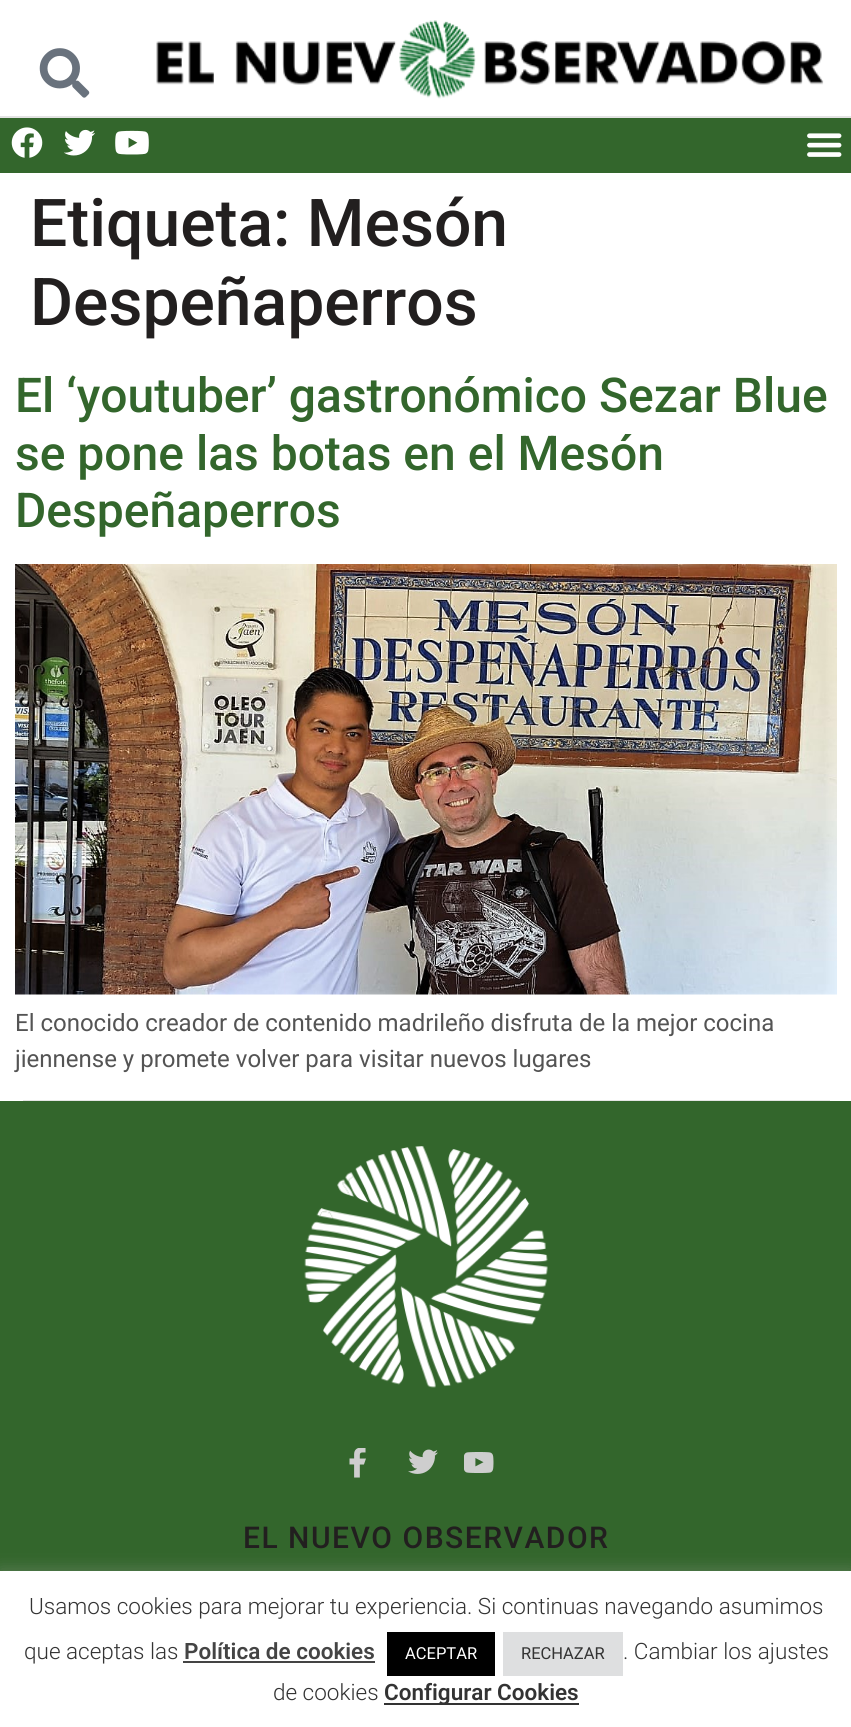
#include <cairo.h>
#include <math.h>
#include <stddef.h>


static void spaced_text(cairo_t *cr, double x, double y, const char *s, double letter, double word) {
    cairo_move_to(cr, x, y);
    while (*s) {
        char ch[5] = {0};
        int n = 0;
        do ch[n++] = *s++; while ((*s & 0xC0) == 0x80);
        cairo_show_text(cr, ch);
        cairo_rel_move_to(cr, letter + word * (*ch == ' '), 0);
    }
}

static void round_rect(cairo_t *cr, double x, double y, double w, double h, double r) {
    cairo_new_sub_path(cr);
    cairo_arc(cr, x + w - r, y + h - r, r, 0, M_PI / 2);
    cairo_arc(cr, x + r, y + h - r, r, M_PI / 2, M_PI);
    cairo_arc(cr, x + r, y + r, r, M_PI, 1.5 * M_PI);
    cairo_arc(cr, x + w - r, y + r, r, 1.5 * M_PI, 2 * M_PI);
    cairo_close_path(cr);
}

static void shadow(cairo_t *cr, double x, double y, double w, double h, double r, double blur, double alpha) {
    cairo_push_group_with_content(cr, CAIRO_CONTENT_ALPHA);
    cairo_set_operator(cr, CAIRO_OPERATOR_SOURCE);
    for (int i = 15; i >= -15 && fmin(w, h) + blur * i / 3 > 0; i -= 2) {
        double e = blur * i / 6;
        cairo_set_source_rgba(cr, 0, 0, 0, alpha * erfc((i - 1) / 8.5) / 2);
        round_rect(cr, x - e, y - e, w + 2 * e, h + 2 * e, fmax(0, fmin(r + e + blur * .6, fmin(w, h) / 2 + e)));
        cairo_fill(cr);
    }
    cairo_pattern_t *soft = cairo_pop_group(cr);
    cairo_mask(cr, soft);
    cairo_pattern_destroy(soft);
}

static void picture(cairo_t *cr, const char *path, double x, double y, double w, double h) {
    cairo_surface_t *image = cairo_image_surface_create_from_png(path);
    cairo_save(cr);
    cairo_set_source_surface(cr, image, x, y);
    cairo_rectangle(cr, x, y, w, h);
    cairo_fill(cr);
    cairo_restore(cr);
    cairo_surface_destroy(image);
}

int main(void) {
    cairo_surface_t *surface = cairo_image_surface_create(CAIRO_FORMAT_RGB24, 851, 1727);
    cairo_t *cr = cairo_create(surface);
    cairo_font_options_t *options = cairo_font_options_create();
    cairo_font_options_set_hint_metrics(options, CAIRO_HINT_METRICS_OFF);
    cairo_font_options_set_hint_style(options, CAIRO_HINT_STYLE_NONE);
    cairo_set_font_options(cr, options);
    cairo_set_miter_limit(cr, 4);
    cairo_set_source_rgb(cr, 1, 1, 1);
    cairo_paint(cr);
    cairo_set_source_rgb(cr, 0.89, 0.89, 0.89);
    cairo_rectangle(cr, 0, 116, 851, 2);
    cairo_fill(cr);
    picture(cr, "img1.png", 39, 48, 51, 50);
    picture(cr, "img2.png", 156, 20, 668, 79);
    cairo_set_source_rgb(cr, 0.2, 0.4, 0.173);
    cairo_rectangle(cr, 0, 118, 851, 55);
    cairo_fill(cr);
    picture(cr, "img3.png", 11, 127, 32, 31);
    picture(cr, "img4.png", 64, 129, 31, 27);
    picture(cr, "img5.png", 115, 130, 34, 25);
    picture(cr, "img6.png", 807, 133, 35, 24);
    cairo_select_font_face(cr, "Roboto Medium", CAIRO_FONT_SLANT_NORMAL, CAIRO_FONT_WEIGHT_NORMAL);
    cairo_set_font_size(cr, 66);
    cairo_set_source_rgb(cr, 0.133, 0.122, 0.122);
    cairo_move_to(cr, 30, 246);
    cairo_show_text(cr, "Etiqueta: Mesón");
    cairo_move_to(cr, 30, 325);
    cairo_show_text(cr, "Despeñaperros");
    cairo_set_font_size(cr, 48);
    cairo_set_source_rgb(cr, 0.2, 0.4, 0.173);
    cairo_move_to(cr, 15, 412);
    cairo_show_text(cr, "El ‘youtuber’ gastronómico Sezar Blue");
    cairo_move_to(cr, 15, 470);
    cairo_show_text(cr, "se pone las botas en el Mesón");
    cairo_move_to(cr, 15, 527);
    cairo_show_text(cr, "Despeñaperros");
    picture(cr, "img7.png", 15, 564, 822, 431);
    cairo_select_font_face(cr, "Roboto", CAIRO_FONT_SLANT_NORMAL, CAIRO_FONT_WEIGHT_NORMAL);
    cairo_set_font_size(cr, 24);
    cairo_set_source_rgb(cr, 0.329, 0.329, 0.329);
    cairo_move_to(cr, 15, 1031);
    cairo_show_text(cr, "El conocido creador de contenido madrileño disfruta de la mejor cocina");
    cairo_move_to(cr, 15, 1067);
    cairo_show_text(cr, "jiennense y promete volver para visitar nuevos lugares");
    cairo_set_source_rgb(cr, 0.898, 0.898, 0.898);
    cairo_rectangle(cr, 23, 1100, 807, 1);
    cairo_fill(cr);
    cairo_set_source_rgb(cr, 0.2, 0.4, 0.173);
    cairo_rectangle(cr, 0, 1101, 851, 470);
    cairo_fill(cr);
    picture(cr, "img8.png", 304, 1146, 244, 242);
    picture(cr, "img9.png", 349, 1448, 17, 30);
    picture(cr, "img10.png", 408, 1449, 30, 25);
    picture(cr, "img11.png", 464, 1452, 30, 21);
    cairo_select_font_face(cr, "Roboto Medium", CAIRO_FONT_SLANT_NORMAL, CAIRO_FONT_WEIGHT_NORMAL);
    cairo_set_font_size(cr, 30);
    cairo_set_source_rgb(cr, 0.133, 0.122, 0.122);
    spaced_text(cr, 243, 1548, "EL NUEVO OBSERVADOR", 1.5, 0);
    cairo_set_source_rgb(cr, 0.675, 0.671, 0.671);
    shadow(cr, 0, 1569, 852, 158, 0, 7.5, 0.3);
    cairo_set_source_rgb(cr, 1, 1, 1);
    cairo_rectangle(cr, 0, 1571, 851, 156);
    cairo_fill(cr);
    cairo_select_font_face(cr, "Roboto Light", CAIRO_FONT_SLANT_NORMAL, CAIRO_FONT_WEIGHT_NORMAL);
    cairo_set_font_size(cr, 22.5);
    cairo_set_source_rgb(cr, 0.2, 0.2, 0.2);
    cairo_move_to(cr, 29, 1614);
    cairo_show_text(cr, "Usamos cookies para mejorar tu experiencia. Si continuas navegando asumimos");
    cairo_move_to(cr, 24, 1659);
    cairo_show_text(cr, "que aceptas las");
    cairo_select_font_face(cr, "Roboto SemiBold", CAIRO_FONT_SLANT_NORMAL, CAIRO_FONT_WEIGHT_NORMAL);
    cairo_set_source_rgb(cr, 0.267, 0.267, 0.267);
    cairo_move_to(cr, 184, 1659);
    cairo_show_text(cr, "Política de cookies");
    cairo_rectangle(cr, 183, 1661, 192, 2);
    cairo_fill(cr);
    cairo_set_source_rgb(cr, 0, 0, 0);
    cairo_rectangle(cr, 387, 1632, 108, 44);
    cairo_fill(cr);
    cairo_select_font_face(cr, "Roboto", CAIRO_FONT_SLANT_NORMAL, CAIRO_FONT_WEIGHT_NORMAL);
    cairo_set_font_size(cr, 16.5);
    cairo_set_source_rgb(cr, 1, 1, 1);
    cairo_move_to(cr, 405, 1659);
    cairo_show_text(cr, "ACEPTAR");
    cairo_set_source_rgb(cr, 0.871, 0.875, 0.878);
    cairo_rectangle(cr, 503, 1632, 120, 44);
    cairo_fill(cr);
    cairo_set_source_rgb(cr, 0.2, 0.2, 0.2);
    cairo_move_to(cr, 521, 1659);
    cairo_show_text(cr, "RECHAZAR");
    cairo_select_font_face(cr, "Roboto Light", CAIRO_FONT_SLANT_NORMAL, CAIRO_FONT_WEIGHT_NORMAL);
    cairo_set_font_size(cr, 22.5);
    cairo_move_to(cr, 623, 1659);
    cairo_show_text(cr, ". Cambiar los ajustes");
    cairo_move_to(cr, 273, 1700);
    cairo_show_text(cr, "de cookies");
    cairo_rectangle(cr, 384, 1703, 195, 2);
    cairo_fill(cr);
    cairo_select_font_face(cr, "Roboto SemiBold", CAIRO_FONT_SLANT_NORMAL, CAIRO_FONT_WEIGHT_NORMAL);
    cairo_move_to(cr, 384, 1700);
    cairo_show_text(cr, "Configurar Cookies");
    cairo_surface_write_to_png(surface, "page.png");
    cairo_font_options_destroy(options);
    cairo_destroy(cr);
    cairo_surface_destroy(surface);
    return 0;
}
